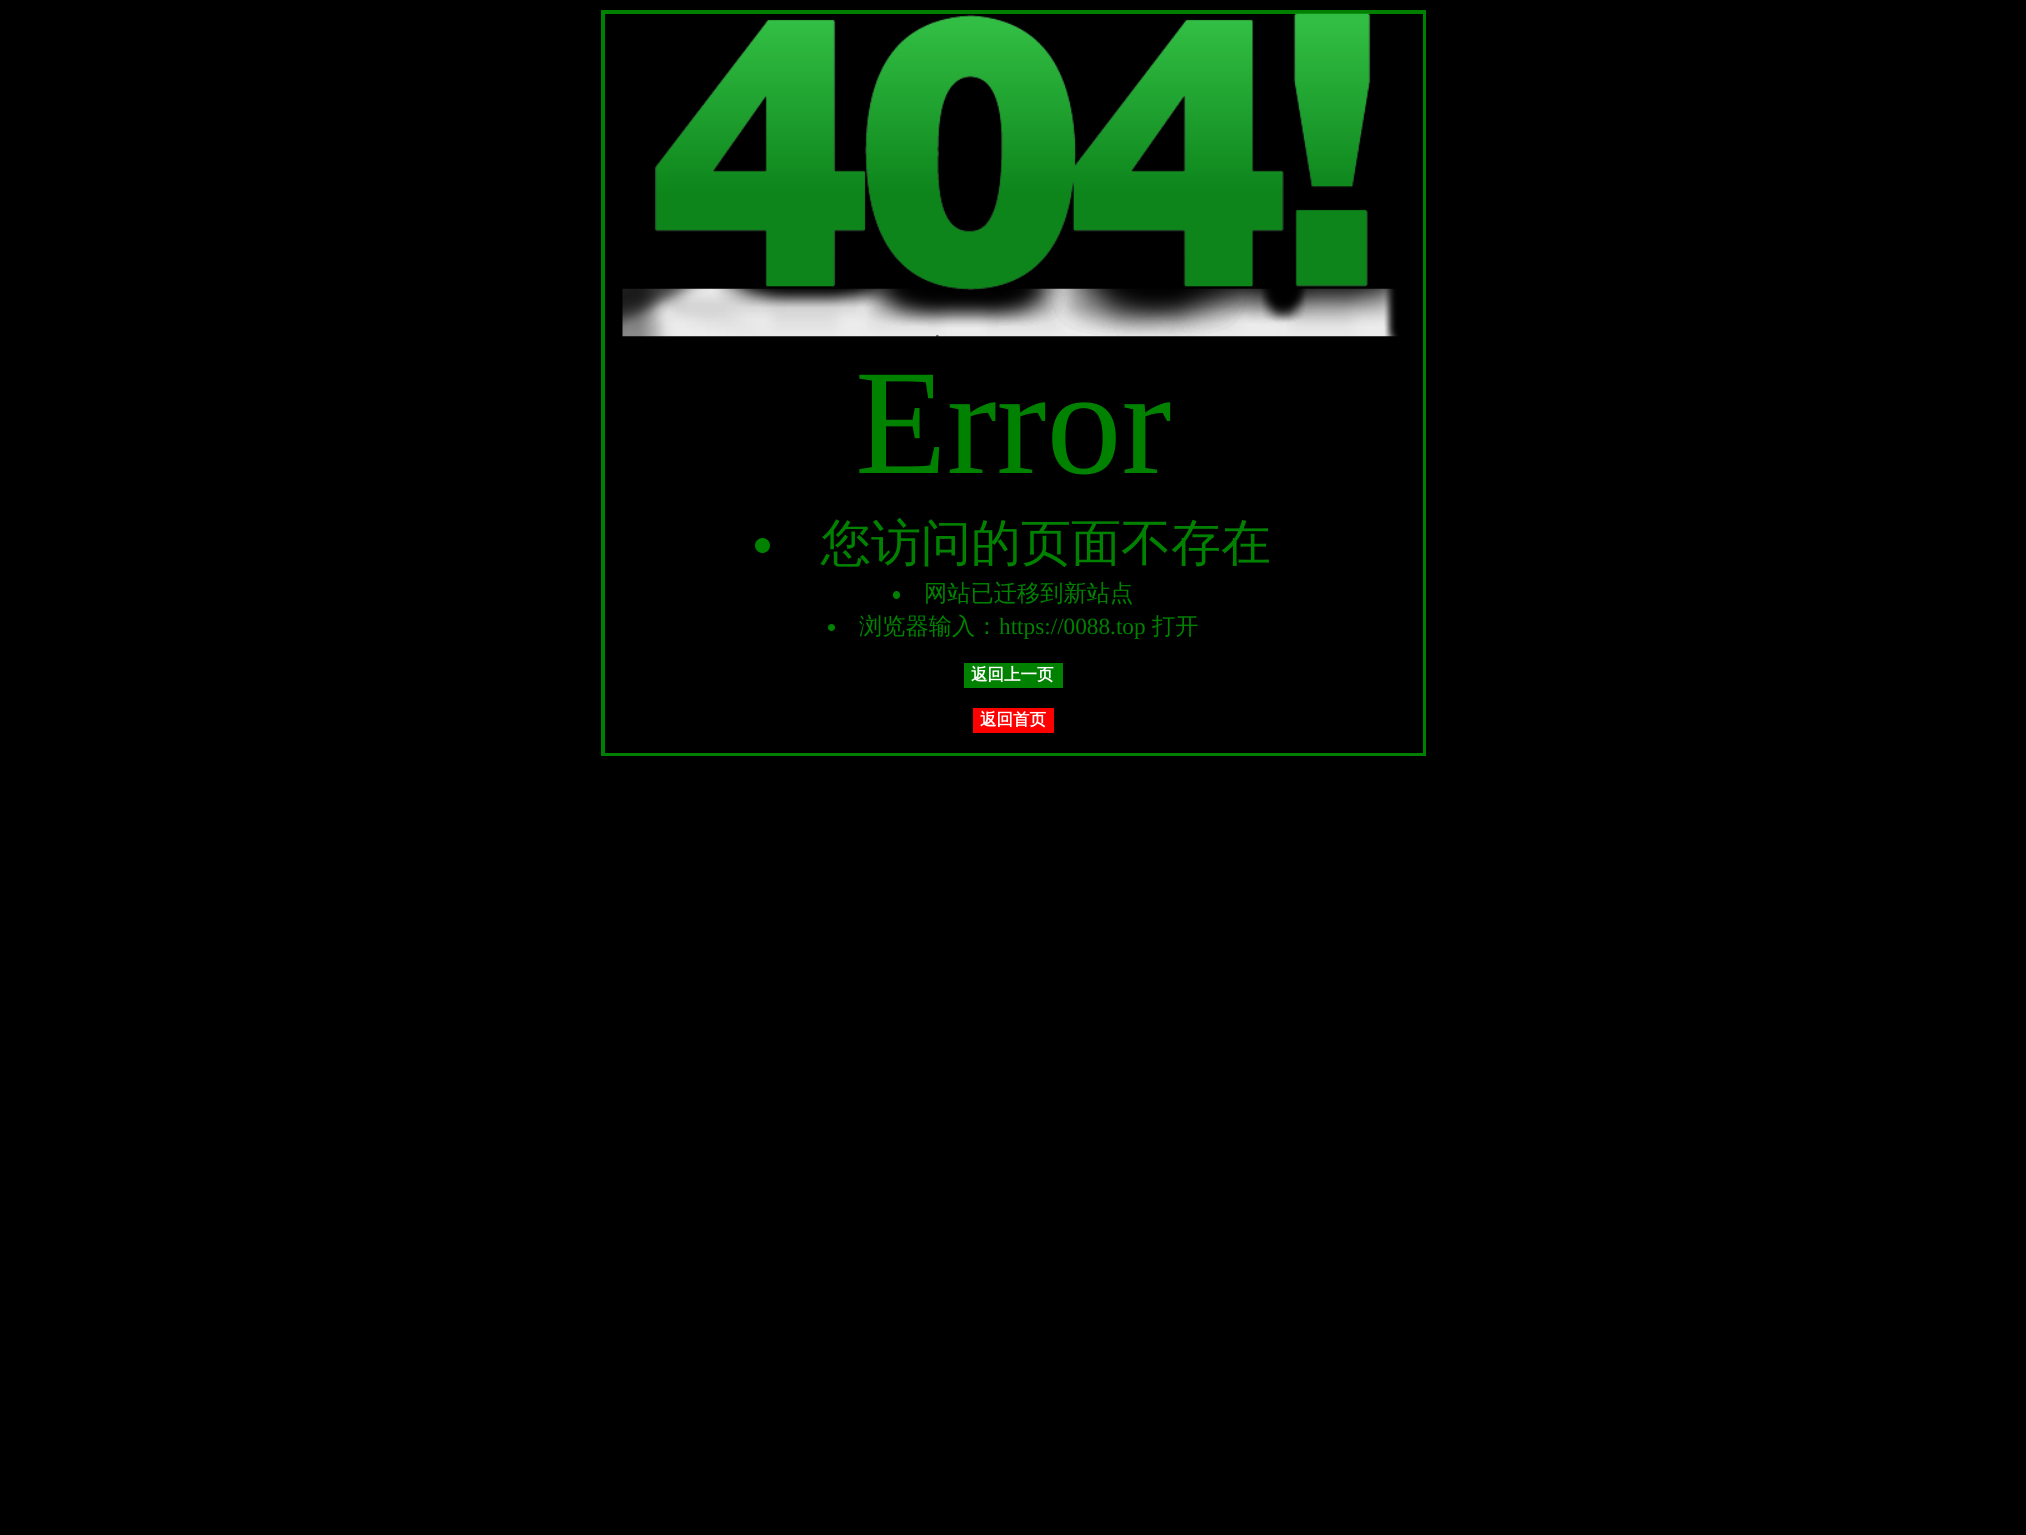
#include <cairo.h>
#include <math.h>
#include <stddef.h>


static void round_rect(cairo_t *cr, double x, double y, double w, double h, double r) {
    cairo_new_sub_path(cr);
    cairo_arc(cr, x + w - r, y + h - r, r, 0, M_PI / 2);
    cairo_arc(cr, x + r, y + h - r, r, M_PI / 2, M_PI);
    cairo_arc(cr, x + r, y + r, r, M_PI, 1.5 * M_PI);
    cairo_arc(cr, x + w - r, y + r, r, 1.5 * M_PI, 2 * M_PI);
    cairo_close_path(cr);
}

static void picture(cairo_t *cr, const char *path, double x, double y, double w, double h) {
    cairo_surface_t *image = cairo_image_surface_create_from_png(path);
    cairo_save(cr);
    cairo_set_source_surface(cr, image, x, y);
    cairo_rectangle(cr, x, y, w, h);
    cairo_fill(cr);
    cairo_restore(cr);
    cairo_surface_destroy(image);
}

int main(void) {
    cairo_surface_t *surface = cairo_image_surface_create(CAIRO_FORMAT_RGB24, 2026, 1535);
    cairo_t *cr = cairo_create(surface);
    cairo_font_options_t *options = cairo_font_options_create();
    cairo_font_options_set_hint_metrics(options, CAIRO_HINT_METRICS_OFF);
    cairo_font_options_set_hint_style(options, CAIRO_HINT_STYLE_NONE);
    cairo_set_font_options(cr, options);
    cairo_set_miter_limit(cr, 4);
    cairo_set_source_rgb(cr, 0, 0, 0);
    cairo_paint(cr);
    cairo_rectangle(cr, 602.5, 11.5, 822, 743);
    cairo_set_source_rgb(cr, 0, 0.502, 0);
    cairo_set_line_width(cr, 3);
    cairo_stroke(cr);
    cairo_rectangle(cr, 604.5, 13.5, 819, 740);
    cairo_set_line_width(cr, 1);
    cairo_stroke(cr);
    picture(cr, "img1.png", 622, 13, 777, 324);
    cairo_select_font_face(cr, "Liberation Serif", CAIRO_FONT_SLANT_NORMAL, CAIRO_FONT_WEIGHT_NORMAL);
    cairo_set_font_size(cr, 150);
    cairo_set_source_rgb(cr, 0, 0.51, 0);
    cairo_move_to(cr, 855, 473);
    cairo_show_text(cr, "Error");
    cairo_new_path(cr);
    cairo_arc(cr, 762.5, 545.5, 7.5, 0, 2 * M_PI);
    cairo_fill(cr);
    cairo_select_font_face(cr, "WenQuanYi Zen Hei Medium", CAIRO_FONT_SLANT_NORMAL, CAIRO_FONT_WEIGHT_NORMAL);
    cairo_set_font_size(cr, 50);
    cairo_move_to(cr, 821, 560);
    cairo_show_text(cr, "您访问的页面不存在");
    round_rect(cr, 893, 591, 7, 8, 3.5);
    cairo_fill(cr);
    cairo_set_font_size(cr, 23.25);
    cairo_move_to(cr, 924, 601);
    cairo_show_text(cr, "网站已迁移到新站点");
    cairo_new_path(cr);
    cairo_arc(cr, 831.5, 627.5, 3.5, 0, 2 * M_PI);
    cairo_fill(cr);
    cairo_move_to(cr, 859, 634);
    cairo_show_text(cr, "浏览器输入：");
    cairo_select_font_face(cr, "Liberation Serif", CAIRO_FONT_SLANT_NORMAL, CAIRO_FONT_WEIGHT_NORMAL);
    cairo_move_to(cr, 999, 634);
    cairo_show_text(cr, "https://0088.top");
    cairo_select_font_face(cr, "WenQuanYi Zen Hei Medium", CAIRO_FONT_SLANT_NORMAL, CAIRO_FONT_WEIGHT_NORMAL);
    cairo_move_to(cr, 1152, 634);
    cairo_show_text(cr, "打开");
    cairo_rectangle(cr, 964, 663, 99, 25);
    cairo_fill(cr);
    cairo_select_font_face(cr, "WenQuanYi Zen Hei", CAIRO_FONT_SLANT_NORMAL, CAIRO_FONT_WEIGHT_BOLD);
    cairo_set_font_size(cr, 16.5);
    cairo_set_source_rgb(cr, 1, 1, 1);
    cairo_move_to(cr, 971, 680);
    cairo_show_text(cr, "返回上一页");
    cairo_set_source_rgb(cr, 1, 0, 0);
    cairo_rectangle(cr, 973, 708, 81, 25);
    cairo_fill(cr);
    cairo_set_source_rgb(cr, 1, 1, 1);
    cairo_move_to(cr, 980, 725);
    cairo_show_text(cr, "返回首页");
    cairo_surface_write_to_png(surface, "page.png");
    cairo_font_options_destroy(options);
    cairo_destroy(cr);
    cairo_surface_destroy(surface);
    return 0;
}
